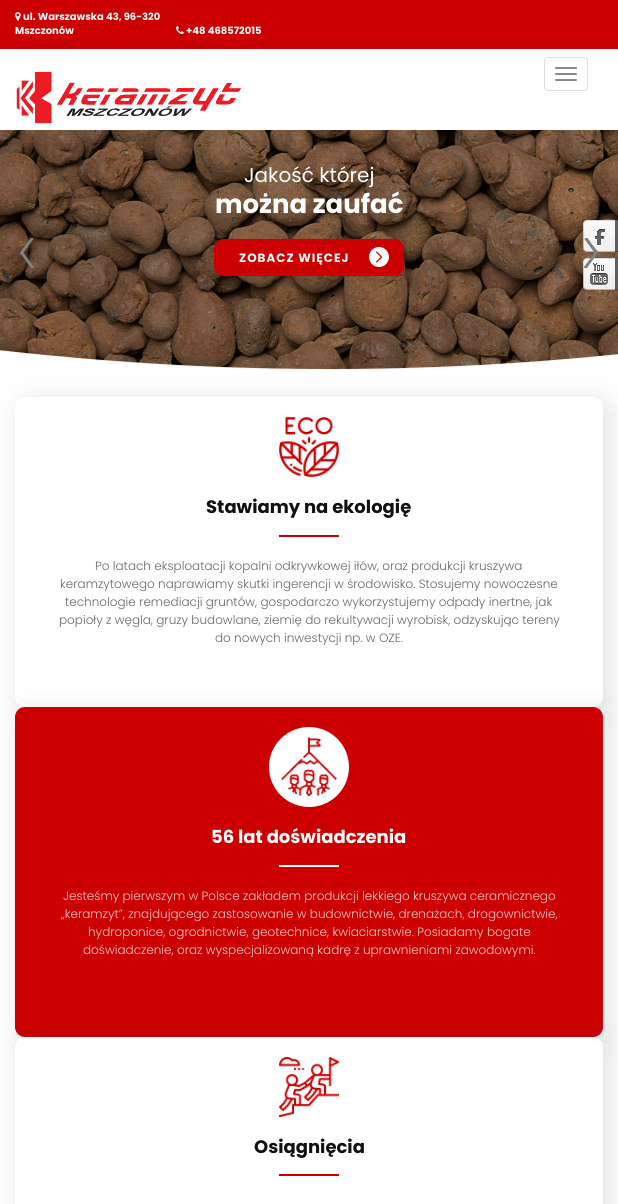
#include <cairo.h>
#include <math.h>
#include <stddef.h>


static void spaced_text(cairo_t *cr, double x, double y, const char *s, double letter, double word) {
    cairo_move_to(cr, x, y);
    while (*s) {
        char ch[5] = {0};
        int n = 0;
        do ch[n++] = *s++; while ((*s & 0xC0) == 0x80);
        cairo_show_text(cr, ch);
        cairo_rel_move_to(cr, letter + word * (*ch == ' '), 0);
    }
}

static void round_rect(cairo_t *cr, double x, double y, double w, double h, double r) {
    cairo_new_sub_path(cr);
    cairo_arc(cr, x + w - r, y + h - r, r, 0, M_PI / 2);
    cairo_arc(cr, x + r, y + h - r, r, M_PI / 2, M_PI);
    cairo_arc(cr, x + r, y + r, r, M_PI, 1.5 * M_PI);
    cairo_arc(cr, x + w - r, y + r, r, 1.5 * M_PI, 2 * M_PI);
    cairo_close_path(cr);
}

static void shadow(cairo_t *cr, double x, double y, double w, double h, double r, double blur, double alpha) {
    cairo_push_group_with_content(cr, CAIRO_CONTENT_ALPHA);
    cairo_set_operator(cr, CAIRO_OPERATOR_SOURCE);
    for (int i = 15; i >= -15 && fmin(w, h) + blur * i / 3 > 0; i -= 2) {
        double e = blur * i / 6;
        cairo_set_source_rgba(cr, 0, 0, 0, alpha * erfc((i - 1) / 8.5) / 2);
        round_rect(cr, x - e, y - e, w + 2 * e, h + 2 * e, fmax(0, fmin(r + e + blur * .6, fmin(w, h) / 2 + e)));
        cairo_fill(cr);
    }
    cairo_pattern_t *soft = cairo_pop_group(cr);
    cairo_mask(cr, soft);
    cairo_pattern_destroy(soft);
}

static void picture(cairo_t *cr, const char *path, double x, double y, double w, double h) {
    cairo_surface_t *image = cairo_image_surface_create_from_png(path);
    cairo_save(cr);
    cairo_set_source_surface(cr, image, x, y);
    cairo_rectangle(cr, x, y, w, h);
    cairo_fill(cr);
    cairo_restore(cr);
    cairo_surface_destroy(image);
}

int main(void) {
    cairo_surface_t *surface = cairo_image_surface_create(CAIRO_FORMAT_RGB24, 618, 1204);
    cairo_t *cr = cairo_create(surface);
    cairo_font_options_t *options = cairo_font_options_create();
    cairo_font_options_set_hint_metrics(options, CAIRO_HINT_METRICS_OFF);
    cairo_font_options_set_hint_style(options, CAIRO_HINT_STYLE_NONE);
    cairo_set_font_options(cr, options);
    cairo_set_miter_limit(cr, 4);
    cairo_set_source_rgb(cr, 1, 1, 1);
    cairo_paint(cr);
    cairo_set_source_rgb(cr, 0.8, 0, 0.004);
    cairo_rectangle(cr, 0, 0, 618, 49);
    cairo_fill(cr);
    cairo_save(cr);
    cairo_rectangle(cr, 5, 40, 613, 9);
    cairo_clip(cr);
    cairo_set_source_rgb(cr, 0, 0, 0);
    shadow(cr, 6, 54, 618, 81, 0, 15, 0.12);
    cairo_restore(cr);
    picture(cr, "img1.png", 16, 71, 226, 53);
    round_rect(cr, 544.5, 57.5, 43, 33, 3.5);
    cairo_set_source_rgb(cr, 0.867, 0.867, 0.867);
    cairo_set_line_width(cr, 1);
    cairo_stroke(cr);
    cairo_set_source_rgb(cr, 0.533, 0.533, 0.533);
    round_rect(cr, 555, 67, 22, 2, 1);
    cairo_fill(cr);
    round_rect(cr, 555, 73, 22, 2, 1);
    cairo_fill(cr);
    round_rect(cr, 555, 79, 22, 2, 1);
    cairo_fill(cr);
    picture(cr, "img2.png", 15, 12, 6, 9);
    cairo_select_font_face(cr, "Poppins", CAIRO_FONT_SLANT_NORMAL, CAIRO_FONT_WEIGHT_BOLD);
    cairo_set_font_size(cr, 10);
    cairo_set_source_rgb(cr, 1, 1, 1);
    cairo_move_to(cr, 23, 20);
    cairo_show_text(cr, "ul. Warszawska 43, 96-320");
    cairo_move_to(cr, 15, 34);
    cairo_show_text(cr, "Mszczonów");
    picture(cr, "img3.png", 176, 26, 8, 8);
    cairo_move_to(cr, 186, 34);
    cairo_show_text(cr, "+48 468572015");
    picture(cr, "img4.png", 0, 130, 618, 240);
    picture(cr, "img5.png", 0, 130, 618, 247);
    cairo_select_font_face(cr, "Poppins", CAIRO_FONT_SLANT_NORMAL, CAIRO_FONT_WEIGHT_NORMAL);
    cairo_set_font_size(cr, 20);
    cairo_move_to(cr, 244, 182);
    cairo_show_text(cr, "Jakość której");
    cairo_select_font_face(cr, "Poppins", CAIRO_FONT_SLANT_NORMAL, CAIRO_FONT_WEIGHT_BOLD);
    cairo_set_font_size(cr, 26);
    cairo_move_to(cr, 215, 213);
    cairo_show_text(cr, "można zaufać");
    cairo_set_source_rgb(cr, 0.8, 0, 0.004);
    round_rect(cr, 214, 239, 190, 37, 10);
    cairo_fill(cr);
    cairo_set_font_size(cr, 12);
    cairo_set_source_rgb(cr, 1, 1, 1);
    spaced_text(cr, 239, 262, "ZOBACZ WIĘCEJ", 1, 0);
    picture(cr, "img6.png", 369, 247, 20, 20);
    picture(cr, "img7.png", 20, 238, 14, 30);
    picture(cr, "img9.png", 583, 220, 35, 32);
    picture(cr, "img10.png", 583, 258, 35, 32);
    picture(cr, "img8.png", 584, 238, 14, 30);
    cairo_set_source_rgb(cr, 0, 0, 0);
    shadow(cr, 21, 402, 588, 310, 10, 15, 0.12);
    cairo_set_source_rgb(cr, 1, 1, 1);
    round_rect(cr, 15, 397, 588, 310, 10);
    cairo_fill(cr);
    picture(cr, "img11.png", 279, 417, 60, 60);
    cairo_set_font_size(cr, 18);
    cairo_set_source_rgb(cr, 0.067, 0.067, 0.067);
    cairo_move_to(cr, 206, 513);
    cairo_show_text(cr, "Stawiamy na ekologię");
    cairo_set_source_rgb(cr, 0.8, 0, 0.004);
    cairo_rectangle(cr, 279, 535, 60, 2);
    cairo_fill(cr);
    cairo_select_font_face(cr, "Poppins Light", CAIRO_FONT_SLANT_NORMAL, CAIRO_FONT_WEIGHT_NORMAL);
    cairo_set_font_size(cr, 12);
    cairo_set_source_rgb(cr, 0.4, 0.4, 0.4);
    cairo_move_to(cr, 95, 570);
    cairo_show_text(cr, "Po latach eksploatacji kopalni odkrywkowej iłów, oraz produkcji kruszywa");
    cairo_move_to(cr, 60, 588);
    cairo_show_text(cr, "keramzytowego naprawiamy skutki ingerencji w środowisko. Stosujemy nowoczesne");
    cairo_move_to(cr, 65, 606);
    cairo_show_text(cr, "technologie remediacji gruntów, gospodarczo wykorzystujemy odpady inertne, jak");
    cairo_move_to(cr, 59, 624);
    cairo_show_text(cr, "popioły z węgla, gruzy budowlane, ziemię do rekultywacji wyrobisk, odzyskując tereny");
    cairo_move_to(cr, 215, 642);
    cairo_show_text(cr, "do nowych inwestycji np. w OZE.");
    cairo_set_source_rgb(cr, 0, 0, 0);
    shadow(cr, 21, 712, 588, 330, 10, 15, 0.12);
    cairo_set_source_rgb(cr, 0.8, 0, 0.004);
    round_rect(cr, 15, 707, 588, 330, 10);
    cairo_fill(cr);
    cairo_set_source_rgb(cr, 1, 1, 1);
    cairo_arc(cr, 309, 767, 40, 0, 2 * M_PI);
    cairo_fill(cr);
    picture(cr, "img12.png", 281, 737, 56, 60);
    cairo_select_font_face(cr, "Poppins", CAIRO_FONT_SLANT_NORMAL, CAIRO_FONT_WEIGHT_BOLD);
    cairo_set_font_size(cr, 18);
    cairo_move_to(cr, 211, 843);
    cairo_show_text(cr, "56 lat doświadczenia");
    cairo_rectangle(cr, 279, 865, 60, 2);
    cairo_fill(cr);
    cairo_select_font_face(cr, "Poppins Light", CAIRO_FONT_SLANT_NORMAL, CAIRO_FONT_WEIGHT_NORMAL);
    cairo_set_font_size(cr, 12);
    cairo_set_source_rgb(cr, 0.961, 0.8, 0.8);
    cairo_move_to(cr, 63, 900);
    cairo_show_text(cr, "Jesteśmy pierwszym w Polsce zakładem produkcji lekkiego kruszywa ceramicznego");
    cairo_move_to(cr, 61, 918);
    cairo_show_text(cr, "„keramzyt”, znajdującego zastosowanie w budownictwie, drenażach, drogownictwie,");
    cairo_move_to(cr, 88, 936);
    cairo_show_text(cr, "hydroponice, ogrodnictwie, geotechnice, kwiaciarstwie. Posiadamy bogate");
    cairo_move_to(cr, 83, 954);
    cairo_show_text(cr, "doświadczenie, oraz wyspecjalizowaną kadrę z uprawnieniami zawodowymi.");
    cairo_set_source_rgb(cr, 0, 0, 0);
    shadow(cr, 21, 1042, 588, 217, 10, 15, 0.12);
    cairo_set_source_rgb(cr, 1, 1, 1);
    round_rect(cr, 15, 1037, 588, 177, 10);
    cairo_fill(cr);
    picture(cr, "img13.png", 279, 1057, 60, 60);
    cairo_select_font_face(cr, "Poppins", CAIRO_FONT_SLANT_NORMAL, CAIRO_FONT_WEIGHT_BOLD);
    cairo_set_font_size(cr, 18);
    cairo_set_source_rgb(cr, 0.067, 0.067, 0.067);
    cairo_move_to(cr, 254, 1153);
    cairo_show_text(cr, "Osiągnięcia");
    cairo_set_source_rgb(cr, 0.8, 0, 0.004);
    cairo_rectangle(cr, 279, 1174, 60, 2);
    cairo_fill(cr);
    cairo_surface_write_to_png(surface, "page.png");
    cairo_font_options_destroy(options);
    cairo_destroy(cr);
    cairo_surface_destroy(surface);
    return 0;
}
